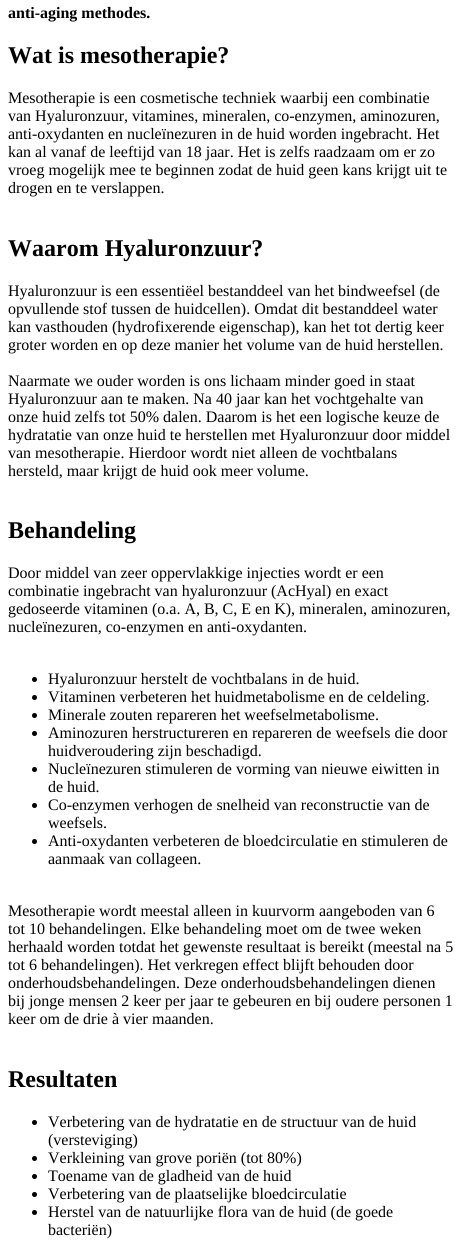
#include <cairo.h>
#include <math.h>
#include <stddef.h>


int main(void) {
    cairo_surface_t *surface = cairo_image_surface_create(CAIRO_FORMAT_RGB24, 462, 1242);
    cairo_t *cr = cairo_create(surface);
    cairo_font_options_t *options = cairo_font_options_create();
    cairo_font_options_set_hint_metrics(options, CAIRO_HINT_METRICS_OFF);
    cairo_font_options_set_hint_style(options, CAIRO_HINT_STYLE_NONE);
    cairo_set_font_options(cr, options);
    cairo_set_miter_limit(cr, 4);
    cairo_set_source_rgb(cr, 1, 1, 1);
    cairo_paint(cr);
    cairo_select_font_face(cr, "Liberation Serif", CAIRO_FONT_SLANT_NORMAL, CAIRO_FONT_WEIGHT_BOLD);
    cairo_set_font_size(cr, 16);
    cairo_set_source_rgb(cr, 0, 0, 0);
    cairo_move_to(cr, 8, 18);
    cairo_show_text(cr, "anti-aging methodes.");
    cairo_set_font_size(cr, 24);
    cairo_move_to(cr, 8, 63);
    cairo_show_text(cr, "Wat is mesotherapie?");
    cairo_select_font_face(cr, "Liberation Serif", CAIRO_FONT_SLANT_NORMAL, CAIRO_FONT_WEIGHT_NORMAL);
    cairo_set_font_size(cr, 16);
    cairo_move_to(cr, 8, 103);
    cairo_show_text(cr, "Mesotherapie is een cosmetische techniek waarbij een combinatie");
    cairo_move_to(cr, 8, 121);
    cairo_show_text(cr, "van Hyaluronzuur, vitamines, mineralen, co-enzymen, aminozuren,");
    cairo_move_to(cr, 8, 139);
    cairo_show_text(cr, "anti-oxydanten en nucleïnezuren in de huid worden ingebracht. Het");
    cairo_move_to(cr, 8, 157);
    cairo_show_text(cr, "kan al vanaf de leeftijd van 18 jaar. Het is zelfs raadzaam om er zo");
    cairo_move_to(cr, 8, 175);
    cairo_show_text(cr, "vroeg mogelijk mee te beginnen zodat de huid geen kans krijgt uit te");
    cairo_move_to(cr, 8, 193);
    cairo_show_text(cr, "drogen en te verslappen.");
    cairo_select_font_face(cr, "Liberation Serif", CAIRO_FONT_SLANT_NORMAL, CAIRO_FONT_WEIGHT_BOLD);
    cairo_set_font_size(cr, 24);
    cairo_move_to(cr, 8, 256);
    cairo_show_text(cr, "Waarom Hyaluronzuur?");
    cairo_select_font_face(cr, "Liberation Serif", CAIRO_FONT_SLANT_NORMAL, CAIRO_FONT_WEIGHT_NORMAL);
    cairo_set_font_size(cr, 16);
    cairo_move_to(cr, 8, 296);
    cairo_show_text(cr, "Hyaluronzuur is een essentiëel bestanddeel van het bindweefsel (de");
    cairo_move_to(cr, 8, 314);
    cairo_show_text(cr, "opvullende stof tussen de huidcellen). Omdat dit bestanddeel water");
    cairo_move_to(cr, 8, 332);
    cairo_show_text(cr, "kan vasthouden (hydrofixerende eigenschap), kan het tot dertig keer");
    cairo_move_to(cr, 8, 350);
    cairo_show_text(cr, "groter worden en op deze manier het volume van de huid herstellen.");
    cairo_move_to(cr, 8, 386);
    cairo_show_text(cr, "Naarmate we ouder worden is ons lichaam minder goed in staat");
    cairo_move_to(cr, 8, 404);
    cairo_show_text(cr, "Hyaluronzuur aan te maken. Na 40 jaar kan het vochtgehalte van");
    cairo_move_to(cr, 8, 422);
    cairo_show_text(cr, "onze huid zelfs tot 50% dalen. Daarom is het een logische keuze de");
    cairo_move_to(cr, 8, 440);
    cairo_show_text(cr, "hydratatie van onze huid te herstellen met Hyaluronzuur door middel");
    cairo_move_to(cr, 8, 458);
    cairo_show_text(cr, "van mesotherapie. Hierdoor wordt niet alleen de vochtbalans");
    cairo_move_to(cr, 8, 476);
    cairo_show_text(cr, "hersteld, maar krijgt de huid ook meer volume.");
    cairo_select_font_face(cr, "Liberation Serif", CAIRO_FONT_SLANT_NORMAL, CAIRO_FONT_WEIGHT_BOLD);
    cairo_set_font_size(cr, 24);
    cairo_move_to(cr, 8, 538);
    cairo_show_text(cr, "Behandeling");
    cairo_select_font_face(cr, "Liberation Serif", CAIRO_FONT_SLANT_NORMAL, CAIRO_FONT_WEIGHT_NORMAL);
    cairo_set_font_size(cr, 16);
    cairo_move_to(cr, 8, 578);
    cairo_show_text(cr, "Door middel van zeer oppervlakkige injecties wordt er een");
    cairo_move_to(cr, 8, 596);
    cairo_show_text(cr, "combinatie ingebracht van hyaluronzuur (AcHyal) en exact");
    cairo_move_to(cr, 8, 614);
    cairo_show_text(cr, "gedoseerde vitaminen (o.a. A, B, C, E en K), mineralen, aminozuren,");
    cairo_move_to(cr, 8, 632);
    cairo_show_text(cr, "nucleïnezuren, co-enzymen en anti-oxydanten.");
    cairo_new_path(cr);
    cairo_arc(cr, 34.5, 679.5, 2.5, 0, 2 * M_PI);
    cairo_fill(cr);
    cairo_move_to(cr, 48, 684);
    cairo_show_text(cr, "Hyaluronzuur herstelt de vochtbalans in de huid.");
    cairo_new_path(cr);
    cairo_arc(cr, 34.5, 697.5, 2.5, 0, 2 * M_PI);
    cairo_fill(cr);
    cairo_move_to(cr, 48, 702);
    cairo_show_text(cr, "Vitaminen verbeteren het huidmetabolisme en de celdeling.");
    cairo_new_path(cr);
    cairo_arc(cr, 34.5, 715.5, 2.5, 0, 2 * M_PI);
    cairo_fill(cr);
    cairo_move_to(cr, 48, 720);
    cairo_show_text(cr, "Minerale zouten repareren het weefselmetabolisme.");
    cairo_new_path(cr);
    cairo_arc(cr, 34.5, 733.5, 2.5, 0, 2 * M_PI);
    cairo_fill(cr);
    cairo_move_to(cr, 48, 738);
    cairo_show_text(cr, "Aminozuren herstructureren en repareren de weefsels die door");
    cairo_move_to(cr, 48, 756);
    cairo_show_text(cr, "huidveroudering zijn beschadigd.");
    cairo_new_path(cr);
    cairo_arc(cr, 34.5, 769.5, 2.5, 0, 2 * M_PI);
    cairo_fill(cr);
    cairo_move_to(cr, 48, 774);
    cairo_show_text(cr, "Nucleïnezuren stimuleren de vorming van nieuwe eiwitten in");
    cairo_move_to(cr, 48, 792);
    cairo_show_text(cr, "de huid.");
    cairo_new_path(cr);
    cairo_arc(cr, 34.5, 805.5, 2.5, 0, 2 * M_PI);
    cairo_fill(cr);
    cairo_move_to(cr, 48, 810);
    cairo_show_text(cr, "Co-enzymen verhogen de snelheid van reconstructie van de");
    cairo_move_to(cr, 48, 828);
    cairo_show_text(cr, "weefsels.");
    cairo_new_path(cr);
    cairo_arc(cr, 34.5, 841.5, 2.5, 0, 2 * M_PI);
    cairo_fill(cr);
    cairo_move_to(cr, 48, 846);
    cairo_show_text(cr, "Anti-oxydanten verbeteren de bloedcirculatie en stimuleren de");
    cairo_move_to(cr, 48, 864);
    cairo_show_text(cr, "aanmaak van collageen.");
    cairo_move_to(cr, 8, 916);
    cairo_show_text(cr, "Mesotherapie wordt meestal alleen in kuurvorm aangeboden van 6");
    cairo_move_to(cr, 8, 934);
    cairo_show_text(cr, "tot 10 behandelingen. Elke behandeling moet om de twee weken");
    cairo_move_to(cr, 8, 952);
    cairo_show_text(cr, "herhaald worden totdat het gewenste resultaat is bereikt (meestal na 5");
    cairo_move_to(cr, 8, 970);
    cairo_show_text(cr, "tot 6 behandelingen). Het verkregen effect blijft behouden door");
    cairo_move_to(cr, 8, 988);
    cairo_show_text(cr, "onderhoudsbehandelingen. Deze onderhoudsbehandelingen dienen");
    cairo_move_to(cr, 8, 1006);
    cairo_show_text(cr, "bij jonge mensen 2 keer per jaar te gebeuren en bij oudere personen 1");
    cairo_move_to(cr, 8, 1024);
    cairo_show_text(cr, "keer om de drie à vier maanden.");
    cairo_select_font_face(cr, "Liberation Serif", CAIRO_FONT_SLANT_NORMAL, CAIRO_FONT_WEIGHT_BOLD);
    cairo_set_font_size(cr, 24);
    cairo_move_to(cr, 8, 1087);
    cairo_show_text(cr, "Resultaten");
    cairo_new_path(cr);
    cairo_arc(cr, 34.5, 1122.5, 2.5, 0, 2 * M_PI);
    cairo_fill(cr);
    cairo_select_font_face(cr, "Liberation Serif", CAIRO_FONT_SLANT_NORMAL, CAIRO_FONT_WEIGHT_NORMAL);
    cairo_set_font_size(cr, 16);
    cairo_move_to(cr, 48, 1127);
    cairo_show_text(cr, "Verbetering van de hydratatie en de structuur van de huid");
    cairo_move_to(cr, 48, 1145);
    cairo_show_text(cr, "(versteviging)");
    cairo_new_path(cr);
    cairo_arc(cr, 34.5, 1158.5, 2.5, 0, 2 * M_PI);
    cairo_fill(cr);
    cairo_move_to(cr, 48, 1163);
    cairo_show_text(cr, "Verkleining van grove poriën (tot 80%)");
    cairo_new_path(cr);
    cairo_arc(cr, 34.5, 1176.5, 2.5, 0, 2 * M_PI);
    cairo_fill(cr);
    cairo_move_to(cr, 48, 1181);
    cairo_show_text(cr, "Toename van de gladheid van de huid");
    cairo_new_path(cr);
    cairo_arc(cr, 34.5, 1194.5, 2.5, 0, 2 * M_PI);
    cairo_fill(cr);
    cairo_move_to(cr, 48, 1199);
    cairo_show_text(cr, "Verbetering van de plaatselijke bloedcirculatie");
    cairo_new_path(cr);
    cairo_arc(cr, 34.5, 1212.5, 2.5, 0, 2 * M_PI);
    cairo_fill(cr);
    cairo_move_to(cr, 48, 1217);
    cairo_show_text(cr, "Herstel van de natuurlijke flora van de huid (de goede");
    cairo_move_to(cr, 48, 1235);
    cairo_show_text(cr, "bacteriën)");
    cairo_surface_write_to_png(surface, "page.png");
    cairo_font_options_destroy(options);
    cairo_destroy(cr);
    cairo_surface_destroy(surface);
    return 0;
}
